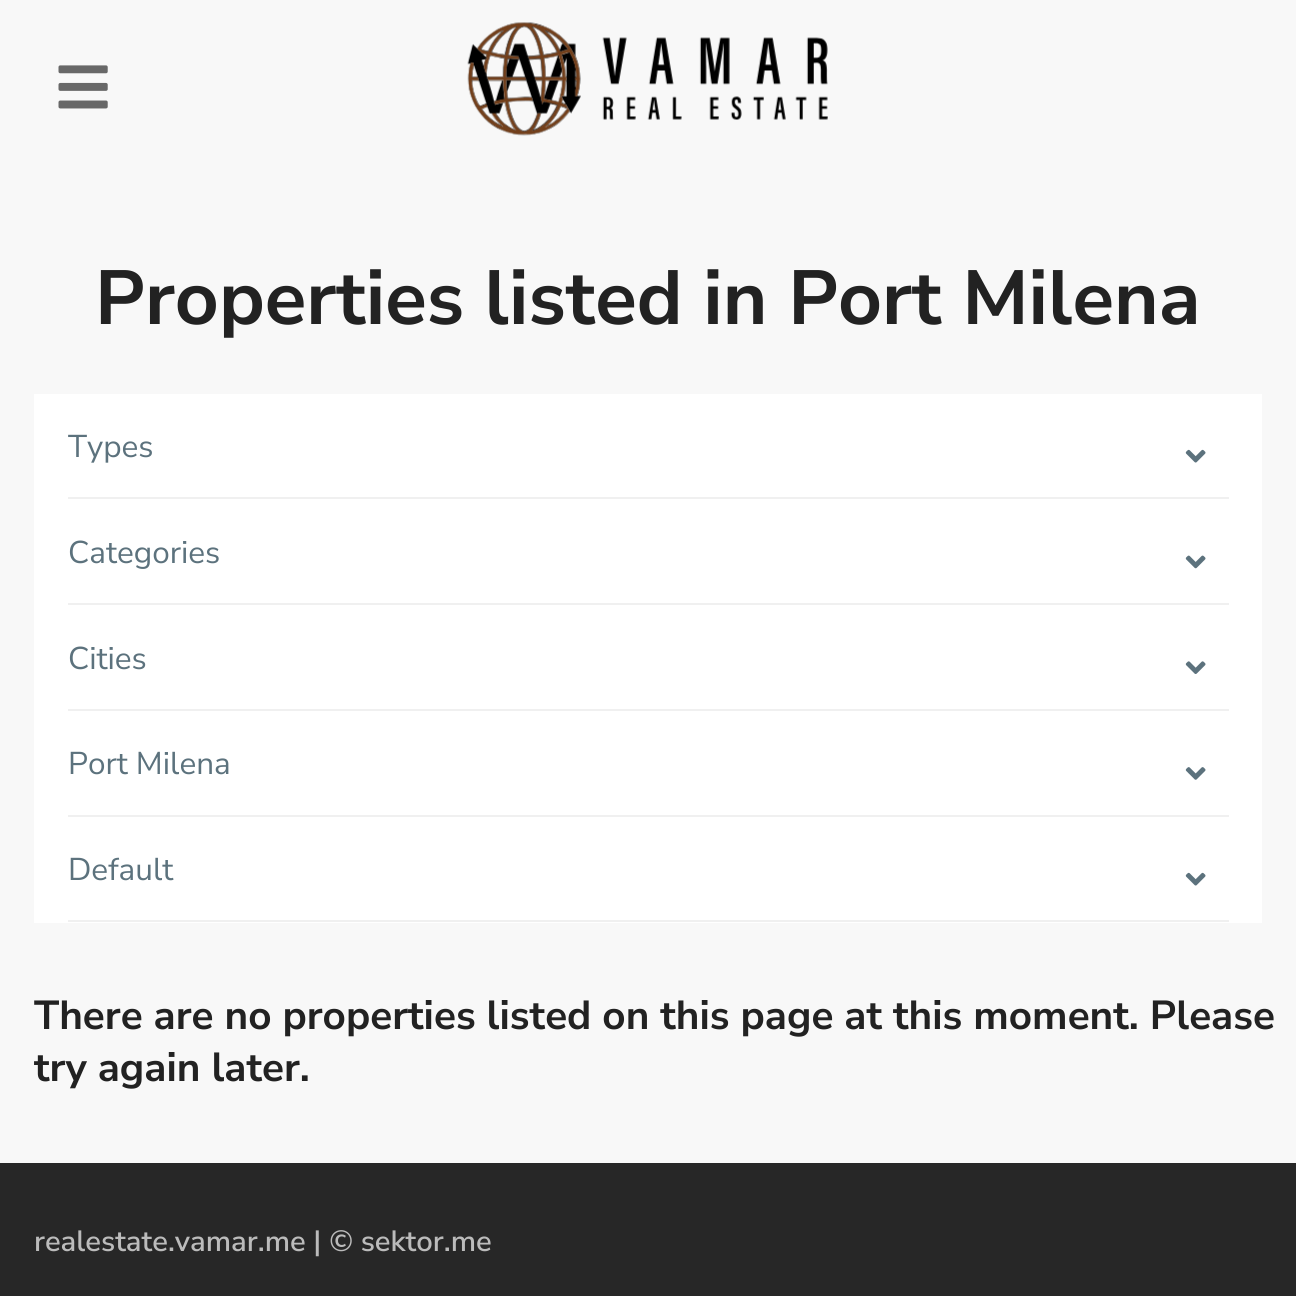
#include <cairo.h>
#include <math.h>
#include <stddef.h>


static void picture(cairo_t *cr, const char *path, double x, double y, double w, double h) {
    cairo_surface_t *image = cairo_image_surface_create_from_png(path);
    cairo_save(cr);
    cairo_set_source_surface(cr, image, x, y);
    cairo_rectangle(cr, x, y, w, h);
    cairo_fill(cr);
    cairo_restore(cr);
    cairo_surface_destroy(image);
}

int main(void) {
    cairo_surface_t *surface = cairo_image_surface_create(CAIRO_FORMAT_RGB24, 1296, 1296);
    cairo_t *cr = cairo_create(surface);
    cairo_font_options_t *options = cairo_font_options_create();
    cairo_font_options_set_hint_metrics(options, CAIRO_HINT_METRICS_OFF);
    cairo_font_options_set_hint_style(options, CAIRO_HINT_STYLE_NONE);
    cairo_set_font_options(cr, options);
    cairo_set_miter_limit(cr, 4);
    cairo_set_source_rgb(cr, 0.969, 0.969, 0.969);
    cairo_paint(cr);
    picture(cr, "img1.png", 58, 65, 50, 44);
    picture(cr, "img2.png", 467, 22, 361, 114);
    cairo_select_font_face(cr, "Nunito Sans", CAIRO_FONT_SLANT_NORMAL, CAIRO_FONT_WEIGHT_BOLD);
    cairo_set_font_size(cr, 76.5);
    cairo_set_source_rgb(cr, 0.133, 0.133, 0.133);
    cairo_move_to(cr, 95, 324);
    cairo_show_text(cr, "Properties listed in Port Milena");
    cairo_set_source_rgb(cr, 1, 1, 1);
    cairo_rectangle(cr, 34, 394, 1228, 529);
    cairo_fill(cr);
    cairo_set_source_rgb(cr, 0.941, 0.941, 0.941);
    cairo_rectangle(cr, 68, 497, 1161, 2);
    cairo_fill(cr);
    cairo_select_font_face(cr, "Nunito Sans", CAIRO_FONT_SLANT_NORMAL, CAIRO_FONT_WEIGHT_NORMAL);
    cairo_set_font_size(cr, 31.5);
    cairo_set_source_rgb(cr, 0.361, 0.447, 0.49);
    cairo_move_to(cr, 68, 457);
    cairo_show_text(cr, "Types");
    picture(cr, "img3.png", 1185, 449, 21, 14);
    cairo_set_source_rgb(cr, 0.941, 0.941, 0.941);
    cairo_rectangle(cr, 68, 603, 1161, 2);
    cairo_fill(cr);
    cairo_set_source_rgb(cr, 0.361, 0.447, 0.49);
    cairo_move_to(cr, 68, 563);
    cairo_show_text(cr, "Categories");
    picture(cr, "img4.png", 1185, 555, 21, 14);
    cairo_set_source_rgb(cr, 0.941, 0.941, 0.941);
    cairo_rectangle(cr, 68, 709, 1161, 2);
    cairo_fill(cr);
    cairo_set_source_rgb(cr, 0.361, 0.447, 0.49);
    cairo_move_to(cr, 68, 669);
    cairo_show_text(cr, "Cities");
    picture(cr, "img5.png", 1185, 661, 21, 13);
    cairo_set_source_rgb(cr, 0.941, 0.941, 0.941);
    cairo_rectangle(cr, 68, 815, 1161, 2);
    cairo_fill(cr);
    cairo_set_source_rgb(cr, 0.361, 0.447, 0.49);
    cairo_move_to(cr, 68, 774);
    cairo_show_text(cr, "Port Milena");
    picture(cr, "img6.png", 1185, 767, 21, 13);
    cairo_set_source_rgb(cr, 0.941, 0.941, 0.941);
    cairo_rectangle(cr, 68, 920, 1161, 2);
    cairo_fill(cr);
    cairo_set_source_rgb(cr, 0.361, 0.447, 0.49);
    cairo_move_to(cr, 68, 880);
    cairo_show_text(cr, "Default");
    picture(cr, "img3.png", 1185, 872, 21, 14);
    cairo_select_font_face(cr, "Nunito Sans", CAIRO_FONT_SLANT_NORMAL, CAIRO_FONT_WEIGHT_BOLD);
    cairo_set_font_size(cr, 40.5);
    cairo_set_source_rgb(cr, 0.133, 0.133, 0.133);
    cairo_move_to(cr, 34, 1029);
    cairo_show_text(cr, "There are no properties listed on this page at this moment. Please");
    cairo_move_to(cr, 34, 1081);
    cairo_show_text(cr, "try again later.");
    cairo_set_source_rgb(cr, 0.153, 0.153, 0.153);
    cairo_rectangle(cr, 0, 1163, 1296, 133);
    cairo_fill(cr);
    cairo_select_font_face(cr, "Nunito Sans SemiBold", CAIRO_FONT_SLANT_NORMAL, CAIRO_FONT_WEIGHT_NORMAL);
    cairo_set_font_size(cr, 29.25);
    cairo_set_source_rgb(cr, 0.733, 0.733, 0.733);
    cairo_move_to(cr, 34, 1251);
    cairo_show_text(cr, "realestate.vamar.me | © sektor.me");
    cairo_surface_write_to_png(surface, "page.png");
    cairo_font_options_destroy(options);
    cairo_destroy(cr);
    cairo_surface_destroy(surface);
    return 0;
}
